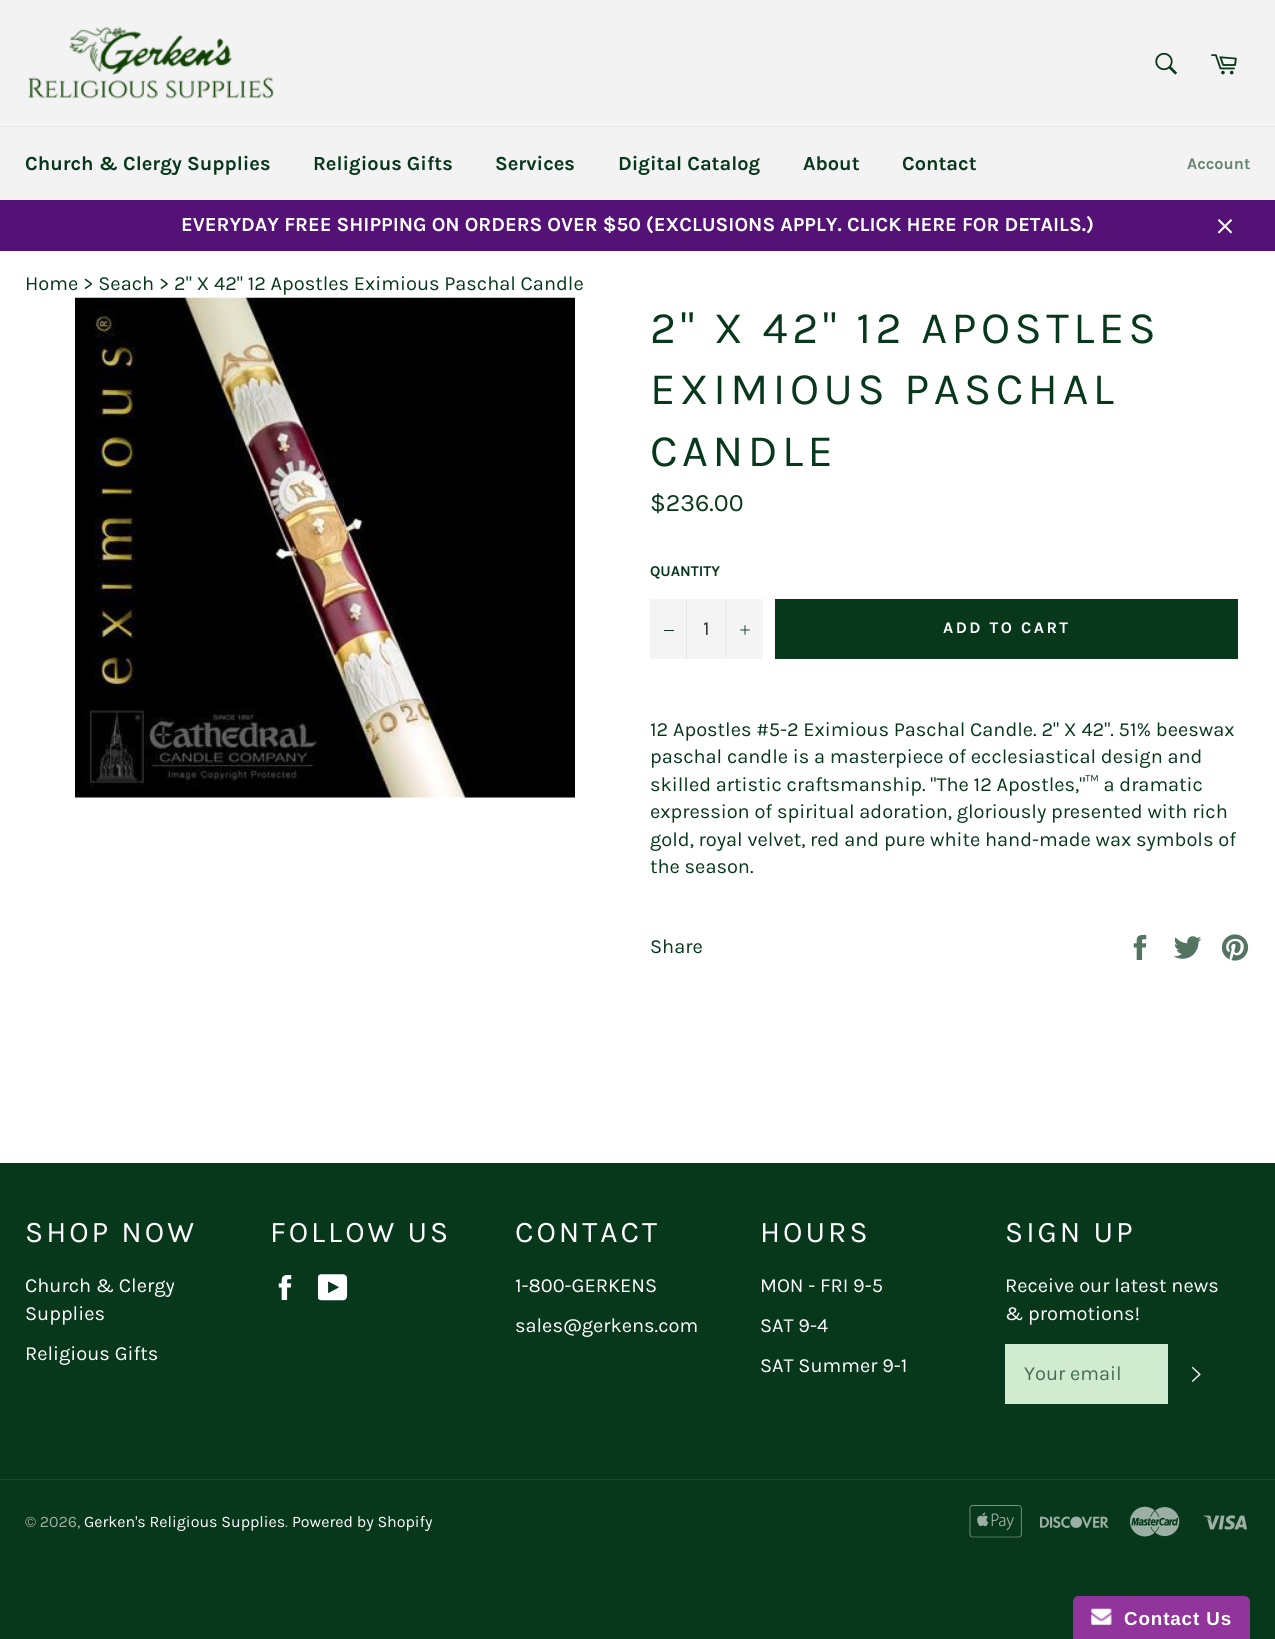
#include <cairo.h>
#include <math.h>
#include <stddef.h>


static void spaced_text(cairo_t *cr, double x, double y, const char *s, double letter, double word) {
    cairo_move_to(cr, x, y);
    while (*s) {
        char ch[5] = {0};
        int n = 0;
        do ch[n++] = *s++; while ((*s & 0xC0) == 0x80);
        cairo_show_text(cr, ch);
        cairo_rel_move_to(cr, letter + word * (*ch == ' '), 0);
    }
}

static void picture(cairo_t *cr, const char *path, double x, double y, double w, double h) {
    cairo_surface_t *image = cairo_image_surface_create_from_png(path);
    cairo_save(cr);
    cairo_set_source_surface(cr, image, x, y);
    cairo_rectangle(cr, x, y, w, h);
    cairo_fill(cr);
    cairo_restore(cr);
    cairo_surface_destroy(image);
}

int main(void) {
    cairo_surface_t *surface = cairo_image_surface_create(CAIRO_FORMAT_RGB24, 1275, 1639);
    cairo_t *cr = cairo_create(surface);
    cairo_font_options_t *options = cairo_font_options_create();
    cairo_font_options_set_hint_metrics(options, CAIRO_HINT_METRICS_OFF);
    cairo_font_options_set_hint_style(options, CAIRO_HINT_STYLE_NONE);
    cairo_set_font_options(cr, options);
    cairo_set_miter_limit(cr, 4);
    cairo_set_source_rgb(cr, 0.035, 0.22, 0.11);
    cairo_paint(cr);
    cairo_set_source_rgb(cr, 1, 1, 1);
    cairo_rectangle(cr, 0, 251, 1275, 912);
    cairo_fill(cr);
    cairo_set_source_rgb(cr, 0.953, 0.953, 0.953);
    cairo_rectangle(cr, 0, 0, 1275, 126);
    cairo_fill(cr);
    picture(cr, "img1.png", 28, 27, 246, 72);
    picture(cr, "img2.png", 1155, 52, 22, 23);
    picture(cr, "img3.png", 1211, 54, 26, 21);
    cairo_rectangle(cr, 0, 127, 1275, 73);
    cairo_fill(cr);
    cairo_set_source_rgb(cr, 0.902, 0.902, 0.902);
    cairo_rectangle(cr, 0, 126, 1275, 1);
    cairo_fill(cr);
    cairo_select_font_face(cr, "Karla", CAIRO_FONT_SLANT_NORMAL, CAIRO_FONT_WEIGHT_BOLD);
    cairo_set_font_size(cr, 20);
    cairo_set_source_rgb(cr, 0.035, 0.22, 0.11);
    cairo_move_to(cr, 25, 170);
    cairo_show_text(cr, "Church & Clergy Supplies");
    cairo_move_to(cr, 313, 170);
    cairo_show_text(cr, "Religious Gifts");
    cairo_move_to(cr, 495, 170);
    cairo_show_text(cr, "Services");
    cairo_move_to(cr, 618, 170);
    cairo_show_text(cr, "Digital Catalog");
    cairo_move_to(cr, 803, 170);
    cairo_show_text(cr, "About");
    cairo_move_to(cr, 902, 170);
    cairo_show_text(cr, "Contact");
    cairo_set_font_size(cr, 16.25);
    cairo_set_source_rgb(cr, 0.404, 0.514, 0.447);
    cairo_move_to(cr, 1187, 169);
    cairo_show_text(cr, "Account");
    cairo_set_source_rgb(cr, 0.329, 0.071, 0.467);
    cairo_rectangle(cr, 0, 200, 1275, 51);
    cairo_fill(cr);
    cairo_set_font_size(cr, 20);
    cairo_set_source_rgb(cr, 1, 1, 1);
    cairo_move_to(cr, 181, 231);
    cairo_show_text(cr, "EVERYDAY FREE SHIPPING ON ORDERS OVER $50 (EXCLUSIONS APPLY. CLICK HERE FOR DETAILS.)");
    picture(cr, "img4.png", 1217, 219, 16, 15);
    cairo_select_font_face(cr, "Karla", CAIRO_FONT_SLANT_NORMAL, CAIRO_FONT_WEIGHT_NORMAL);
    cairo_set_source_rgb(cr, 0.035, 0.22, 0.11);
    cairo_move_to(cr, 25, 290);
    cairo_show_text(cr, "Home > Seach > 2\" X 42\" 12 Apostles Eximious Paschal Candle");
    picture(cr, "img5.png", 75, 297, 500, 501);
    cairo_set_font_size(cr, 45);
    spaced_text(cr, 650, 343, "2\" X 42\" 12 APOSTLES", 4.5, 0);
    spaced_text(cr, 650, 404, "EXIMIOUS PASCHAL", 4.5, 0);
    spaced_text(cr, 650, 466, "CANDLE", 4.5, 0);
    cairo_set_font_size(cr, 25);
    cairo_move_to(cr, 650, 511);
    cairo_show_text(cr, "$236.00");
    cairo_select_font_face(cr, "Karla", CAIRO_FONT_SLANT_NORMAL, CAIRO_FONT_WEIGHT_BOLD);
    cairo_set_font_size(cr, 15);
    cairo_move_to(cr, 650, 576);
    cairo_show_text(cr, "QUANTITY");
    cairo_set_source_rgb(cr, 0.957, 0.957, 0.957);
    cairo_rectangle(cr, 650, 599, 113, 60);
    cairo_fill(cr);
    cairo_set_source_rgb(cr, 0.906, 0.906, 0.906);
    cairo_rectangle(cr, 686, 599, 1, 60);
    cairo_fill(cr);
    cairo_set_source_rgb(cr, 0.035, 0.22, 0.11);
    cairo_rectangle(cr, 664, 630, 10, 1);
    cairo_fill(cr);
    cairo_select_font_face(cr, "Karla", CAIRO_FONT_SLANT_NORMAL, CAIRO_FONT_WEIGHT_NORMAL);
    cairo_set_font_size(cr, 20);
    cairo_set_source_rgb(cr, 0.2, 0.2, 0.2);
    cairo_move_to(cr, 703, 635);
    cairo_show_text(cr, "1");
    cairo_set_source_rgb(cr, 0.906, 0.906, 0.906);
    cairo_rectangle(cr, 725, 599, 1, 60);
    cairo_fill(cr);
    picture(cr, "img6.png", 740, 625, 10, 10);
    cairo_set_source_rgb(cr, 0.035, 0.22, 0.11);
    cairo_rectangle(cr, 775, 599, 463, 60);
    cairo_fill(cr);
    cairo_select_font_face(cr, "Karla", CAIRO_FONT_SLANT_NORMAL, CAIRO_FONT_WEIGHT_BOLD);
    cairo_set_font_size(cr, 16.25);
    cairo_set_source_rgb(cr, 1, 1, 1);
    spaced_text(cr, 943, 633, "ADD TO CART", 2.5, 0);
    cairo_select_font_face(cr, "Karla", CAIRO_FONT_SLANT_NORMAL, CAIRO_FONT_WEIGHT_NORMAL);
    cairo_set_font_size(cr, 20);
    cairo_set_source_rgb(cr, 0.035, 0.22, 0.11);
    cairo_move_to(cr, 650, 736);
    cairo_show_text(cr, "12 Apostles #5-2 Eximious Paschal Candle. 2\" X 42\". 51% beeswax");
    cairo_move_to(cr, 650, 763);
    cairo_show_text(cr, "paschal candle is a masterpiece of ecclesiastical design and");
    cairo_move_to(cr, 650, 791);
    cairo_show_text(cr, "skilled artistic craftsmanship. \"The 12 Apostles,\"™ a dramatic");
    cairo_move_to(cr, 650, 818);
    cairo_show_text(cr, "expression of spiritual adoration, gloriously presented with rich");
    cairo_move_to(cr, 650, 846);
    cairo_show_text(cr, "gold, royal velvet, red and pure white hand-made wax symbols of");
    cairo_move_to(cr, 650, 873);
    cairo_show_text(cr, "the season.");
    cairo_move_to(cr, 650, 953);
    cairo_show_text(cr, "Share");
    picture(cr, "img7.png", 1133, 935, 14, 25);
    picture(cr, "img8.png", 1174, 936, 28, 23);
    picture(cr, "img9.png", 1221, 934, 28, 27);
    cairo_set_font_size(cr, 30);
    cairo_set_source_rgb(cr, 1, 1, 1);
    spaced_text(cr, 25, 1242, "SHOP NOW", 3, 0);
    cairo_set_font_size(cr, 20);
    cairo_move_to(cr, 25, 1292);
    cairo_show_text(cr, "Church & Clergy");
    cairo_move_to(cr, 25, 1320);
    cairo_show_text(cr, "Supplies");
    cairo_move_to(cr, 25, 1360);
    cairo_show_text(cr, "Religious Gifts");
    cairo_set_font_size(cr, 30);
    spaced_text(cr, 270, 1242, "FOLLOW US", 3, 0);
    picture(cr, "img10.png", 278, 1275, 14, 25);
    picture(cr, "img11.png", 318, 1274, 30, 27);
    spaced_text(cr, 515, 1242, "CONTACT", 3, 0);
    cairo_set_font_size(cr, 20);
    cairo_move_to(cr, 515, 1292);
    cairo_show_text(cr, "1-800-GERKENS");
    cairo_move_to(cr, 515, 1332);
    cairo_show_text(cr, "sales@gerkens.com");
    cairo_set_font_size(cr, 30);
    spaced_text(cr, 760, 1242, "HOURS", 3, 0);
    cairo_set_font_size(cr, 20);
    cairo_move_to(cr, 760, 1292);
    cairo_show_text(cr, "MON - FRI 9-5");
    cairo_move_to(cr, 760, 1332);
    cairo_show_text(cr, "SAT 9-4");
    cairo_move_to(cr, 760, 1372);
    cairo_show_text(cr, "SAT Summer 9-1");
    cairo_set_font_size(cr, 30);
    spaced_text(cr, 1005, 1242, "SIGN UP", 3, 0);
    cairo_set_font_size(cr, 20);
    cairo_move_to(cr, 1005, 1292);
    cairo_show_text(cr, "Receive our latest news");
    cairo_move_to(cr, 1005, 1320);
    cairo_show_text(cr, "& promotions!");
    cairo_set_source_rgb(cr, 0.816, 0.918, 0.816);
    cairo_rectangle(cr, 1005, 1344, 163, 60);
    cairo_fill(cr);
    cairo_set_source_rgb(cr, 0.271, 0.427, 0.322);
    cairo_move_to(cr, 1024, 1380);
    cairo_show_text(cr, "Your email");
    picture(cr, "img12.png", 1191, 1366, 10, 16);
    cairo_set_source_rgb(cr, 0.051, 0.306, 0.153);
    cairo_rectangle(cr, 0, 1479, 1275, 1);
    cairo_fill(cr);
    cairo_set_font_size(cr, 16);
    cairo_set_source_rgb(cr, 0.616, 0.686, 0.643);
    cairo_move_to(cr, 25, 1527);
    cairo_show_text(cr, "© 2026,");
    cairo_set_source_rgb(cr, 1, 1, 1);
    cairo_move_to(cr, 84, 1527);
    cairo_show_text(cr, "Gerken's Religious Supplies");
    cairo_set_source_rgb(cr, 0.616, 0.686, 0.643);
    cairo_move_to(cr, 285, 1527);
    cairo_show_text(cr, ".");
    cairo_set_source_rgb(cr, 1, 1, 1);
    cairo_move_to(cr, 292, 1527);
    cairo_show_text(cr, "Powered by Shopify");
    picture(cr, "img13.png", 969, 1505, 53, 33);
    picture(cr, "img14.png", 1040, 1516, 69, 12);
    picture(cr, "img15.png", 1130, 1506, 50, 31);
    picture(cr, "img16.png", 1203, 1515, 44, 15);
    cairo_set_source_rgb(cr, 0.569, 0.204, 0.608);
    cairo_new_path(cr);
    cairo_move_to(cr, 1079, 1596);
    cairo_line_to(cr, 1244, 1596);
    cairo_curve_to(cr, 1247.5, 1596, 1250, 1598.5, 1250, 1602);
    cairo_line_to(cr, 1250, 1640);
    cairo_line_to(cr, 1073, 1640);
    cairo_line_to(cr, 1073, 1602);
    cairo_curve_to(cr, 1073, 1598.5, 1075.5, 1596, 1079, 1596);
    cairo_close_path(cr);
    cairo_fill(cr);
    picture(cr, "img17.png", 1091, 1608, 21, 17);
    cairo_select_font_face(cr, "Liberation Sans", CAIRO_FONT_SLANT_NORMAL, CAIRO_FONT_WEIGHT_BOLD);
    cairo_set_font_size(cr, 18.75);
    cairo_set_source_rgb(cr, 1, 1, 1);
    spaced_text(cr, 1124, 1625, "Contact Us", 0.9, 0);
    cairo_surface_write_to_png(surface, "page.png");
    cairo_font_options_destroy(options);
    cairo_destroy(cr);
    cairo_surface_destroy(surface);
    return 0;
}
